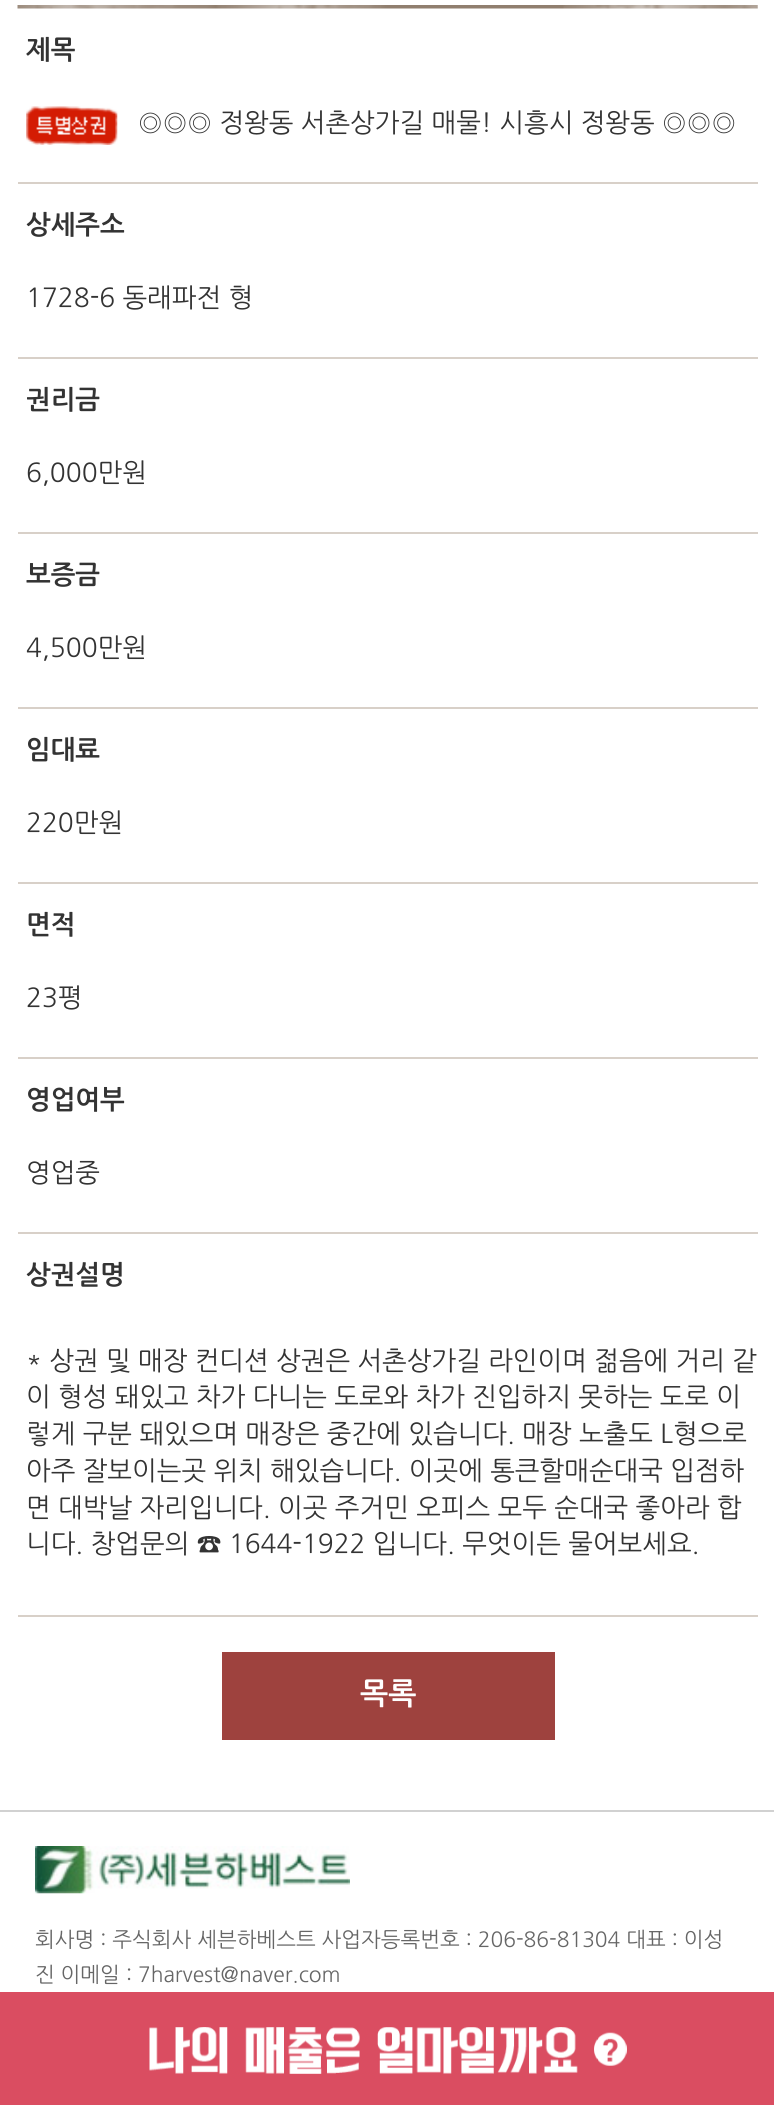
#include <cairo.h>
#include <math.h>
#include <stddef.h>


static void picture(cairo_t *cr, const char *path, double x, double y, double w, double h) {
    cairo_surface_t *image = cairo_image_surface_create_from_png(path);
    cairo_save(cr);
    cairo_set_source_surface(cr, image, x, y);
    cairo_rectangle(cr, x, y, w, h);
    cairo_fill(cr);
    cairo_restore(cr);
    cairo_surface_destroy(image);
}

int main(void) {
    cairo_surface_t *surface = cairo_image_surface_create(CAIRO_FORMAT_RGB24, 774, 2105);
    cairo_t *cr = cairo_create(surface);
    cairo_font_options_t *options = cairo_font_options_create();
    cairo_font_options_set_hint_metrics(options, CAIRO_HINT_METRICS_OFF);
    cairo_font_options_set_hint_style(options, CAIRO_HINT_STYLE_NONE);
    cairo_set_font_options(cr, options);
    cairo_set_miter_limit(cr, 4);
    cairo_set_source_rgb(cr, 1, 1, 1);
    cairo_paint(cr);
    picture(cr, "img1.png", 17, 5, 741, 4);
    cairo_select_font_face(cr, "NanumGothic", CAIRO_FONT_SLANT_NORMAL, CAIRO_FONT_WEIGHT_BOLD);
    cairo_set_font_size(cr, 26.25);
    cairo_set_source_rgb(cr, 0.2, 0.2, 0.2);
    cairo_move_to(cr, 26, 59);
    cairo_show_text(cr, "제목");
    cairo_set_source_rgb(cr, 0.847, 0.816, 0.784);
    cairo_rectangle(cr, 18, 182, 740, 2);
    cairo_fill(cr);
    picture(cr, "img2.png", 26, 106, 92, 39);
    cairo_select_font_face(cr, "NanumGothic", CAIRO_FONT_SLANT_NORMAL, CAIRO_FONT_WEIGHT_NORMAL);
    cairo_set_source_rgb(cr, 0.2, 0.2, 0.2);
    cairo_move_to(cr, 138, 132);
    cairo_show_text(cr, "◎◎◎ 정왕동 서촌상가길 매물! 시흥시 정왕동 ◎◎◎");
    cairo_select_font_face(cr, "NanumGothic", CAIRO_FONT_SLANT_NORMAL, CAIRO_FONT_WEIGHT_BOLD);
    cairo_move_to(cr, 26, 234);
    cairo_show_text(cr, "상세주소");
    cairo_set_source_rgb(cr, 0.847, 0.816, 0.784);
    cairo_rectangle(cr, 18, 357, 740, 2);
    cairo_fill(cr);
    cairo_select_font_face(cr, "NanumGothic", CAIRO_FONT_SLANT_NORMAL, CAIRO_FONT_WEIGHT_NORMAL);
    cairo_set_source_rgb(cr, 0.2, 0.2, 0.2);
    cairo_move_to(cr, 26, 307);
    cairo_show_text(cr, "1728-6 동래파전 형");
    cairo_select_font_face(cr, "NanumGothic", CAIRO_FONT_SLANT_NORMAL, CAIRO_FONT_WEIGHT_BOLD);
    cairo_move_to(cr, 26, 409);
    cairo_show_text(cr, "권리금");
    cairo_set_source_rgb(cr, 0.847, 0.816, 0.784);
    cairo_rectangle(cr, 18, 532, 740, 2);
    cairo_fill(cr);
    cairo_select_font_face(cr, "NanumGothic", CAIRO_FONT_SLANT_NORMAL, CAIRO_FONT_WEIGHT_NORMAL);
    cairo_set_source_rgb(cr, 0.2, 0.2, 0.2);
    cairo_move_to(cr, 26, 482);
    cairo_show_text(cr, "6,000만원");
    cairo_select_font_face(cr, "NanumGothic", CAIRO_FONT_SLANT_NORMAL, CAIRO_FONT_WEIGHT_BOLD);
    cairo_move_to(cr, 26, 584);
    cairo_show_text(cr, "보증금");
    cairo_set_source_rgb(cr, 0.847, 0.816, 0.784);
    cairo_rectangle(cr, 18, 707, 740, 2);
    cairo_fill(cr);
    cairo_select_font_face(cr, "NanumGothic", CAIRO_FONT_SLANT_NORMAL, CAIRO_FONT_WEIGHT_NORMAL);
    cairo_set_source_rgb(cr, 0.2, 0.2, 0.2);
    cairo_move_to(cr, 26, 657);
    cairo_show_text(cr, "4,500만원");
    cairo_select_font_face(cr, "NanumGothic", CAIRO_FONT_SLANT_NORMAL, CAIRO_FONT_WEIGHT_BOLD);
    cairo_move_to(cr, 26, 759);
    cairo_show_text(cr, "임대료");
    cairo_set_source_rgb(cr, 0.847, 0.816, 0.784);
    cairo_rectangle(cr, 18, 882, 740, 2);
    cairo_fill(cr);
    cairo_select_font_face(cr, "NanumGothic", CAIRO_FONT_SLANT_NORMAL, CAIRO_FONT_WEIGHT_NORMAL);
    cairo_set_source_rgb(cr, 0.2, 0.2, 0.2);
    cairo_move_to(cr, 26, 832);
    cairo_show_text(cr, "220만원");
    cairo_select_font_face(cr, "NanumGothic", CAIRO_FONT_SLANT_NORMAL, CAIRO_FONT_WEIGHT_BOLD);
    cairo_move_to(cr, 26, 934);
    cairo_show_text(cr, "면적");
    cairo_set_source_rgb(cr, 0.847, 0.816, 0.784);
    cairo_rectangle(cr, 18, 1057, 740, 2);
    cairo_fill(cr);
    cairo_select_font_face(cr, "NanumGothic", CAIRO_FONT_SLANT_NORMAL, CAIRO_FONT_WEIGHT_NORMAL);
    cairo_set_source_rgb(cr, 0.2, 0.2, 0.2);
    cairo_move_to(cr, 26, 1007);
    cairo_show_text(cr, "23평");
    cairo_select_font_face(cr, "NanumGothic", CAIRO_FONT_SLANT_NORMAL, CAIRO_FONT_WEIGHT_BOLD);
    cairo_move_to(cr, 26, 1109);
    cairo_show_text(cr, "영업여부");
    cairo_set_source_rgb(cr, 0.847, 0.816, 0.784);
    cairo_rectangle(cr, 18, 1232, 740, 2);
    cairo_fill(cr);
    cairo_select_font_face(cr, "NanumGothic", CAIRO_FONT_SLANT_NORMAL, CAIRO_FONT_WEIGHT_NORMAL);
    cairo_set_source_rgb(cr, 0.2, 0.2, 0.2);
    cairo_move_to(cr, 26, 1182);
    cairo_show_text(cr, "영업중");
    cairo_select_font_face(cr, "NanumGothic", CAIRO_FONT_SLANT_NORMAL, CAIRO_FONT_WEIGHT_BOLD);
    cairo_move_to(cr, 26, 1284);
    cairo_show_text(cr, "상권설명");
    cairo_set_source_rgb(cr, 0.847, 0.816, 0.784);
    cairo_rectangle(cr, 18, 1615, 740, 2);
    cairo_fill(cr);
    cairo_select_font_face(cr, "NanumGothic", CAIRO_FONT_SLANT_NORMAL, CAIRO_FONT_WEIGHT_NORMAL);
    cairo_set_source_rgb(cr, 0.2, 0.2, 0.2);
    cairo_move_to(cr, 26, 1370);
    cairo_show_text(cr, "* 상권 및 매장 컨디션 상권은 서촌상가길 라인이며 젊음에 거리 같");
    cairo_move_to(cr, 26, 1406);
    cairo_show_text(cr, "이 형성 돼있고 차가 다니는 도로와 차가 진입하지 못하는 도로 이");
    cairo_move_to(cr, 26, 1443);
    cairo_show_text(cr, "렇게 구분 돼있으며 매장은 중간에 있습니다. 매장 노출도 L형으로");
    cairo_move_to(cr, 26, 1480);
    cairo_show_text(cr, "아주 잘보이는곳 위치 해있습니다. 이곳에 통큰할매순대국 입점하");
    cairo_move_to(cr, 26, 1517);
    cairo_show_text(cr, "면 대박날 자리입니다. 이곳 주거민 오피스 모두 순대국 좋아라 합");
    cairo_move_to(cr, 26, 1553);
    cairo_show_text(cr, "니다. 창업문의 ☎ 1644-1922 입니다. 무엇이든 물어보세요.");
    cairo_set_source_rgb(cr, 0.62, 0.259, 0.243);
    cairo_rectangle(cr, 222, 1652, 333, 88);
    cairo_fill(cr);
    cairo_select_font_face(cr, "NanumGothic", CAIRO_FONT_SLANT_NORMAL, CAIRO_FONT_WEIGHT_BOLD);
    cairo_set_font_size(cr, 30);
    cairo_set_source_rgb(cr, 1, 1, 1);
    cairo_move_to(cr, 360, 1704);
    cairo_show_text(cr, "목록");
    cairo_set_source_rgb(cr, 0.855, 0.302, 0.38);
    cairo_rectangle(cr, 0, 1992, 774, 113);
    cairo_fill(cr);
    picture(cr, "img3.png", 149, 2027, 478, 47);
    cairo_set_source_rgb(cr, 0.82, 0.82, 0.82);
    cairo_rectangle(cr, 0, 1810, 774, 2);
    cairo_fill(cr);
    picture(cr, "img4.png", 35, 1846, 315, 48);
    cairo_select_font_face(cr, "NanumGothic", CAIRO_FONT_SLANT_NORMAL, CAIRO_FONT_WEIGHT_NORMAL);
    cairo_set_font_size(cr, 21);
    cairo_set_source_rgb(cr, 0.4, 0.4, 0.4);
    cairo_move_to(cr, 35, 1947);
    cairo_show_text(cr, "회사명 : 주식회사 세븐하베스트 사업자등록번호 : 206-86-81304 대표 : 이성");
    cairo_move_to(cr, 35, 1982);
    cairo_show_text(cr, "진 이메일 : 7harvest@naver.com");
    cairo_surface_write_to_png(surface, "page.png");
    cairo_font_options_destroy(options);
    cairo_destroy(cr);
    cairo_surface_destroy(surface);
    return 0;
}
